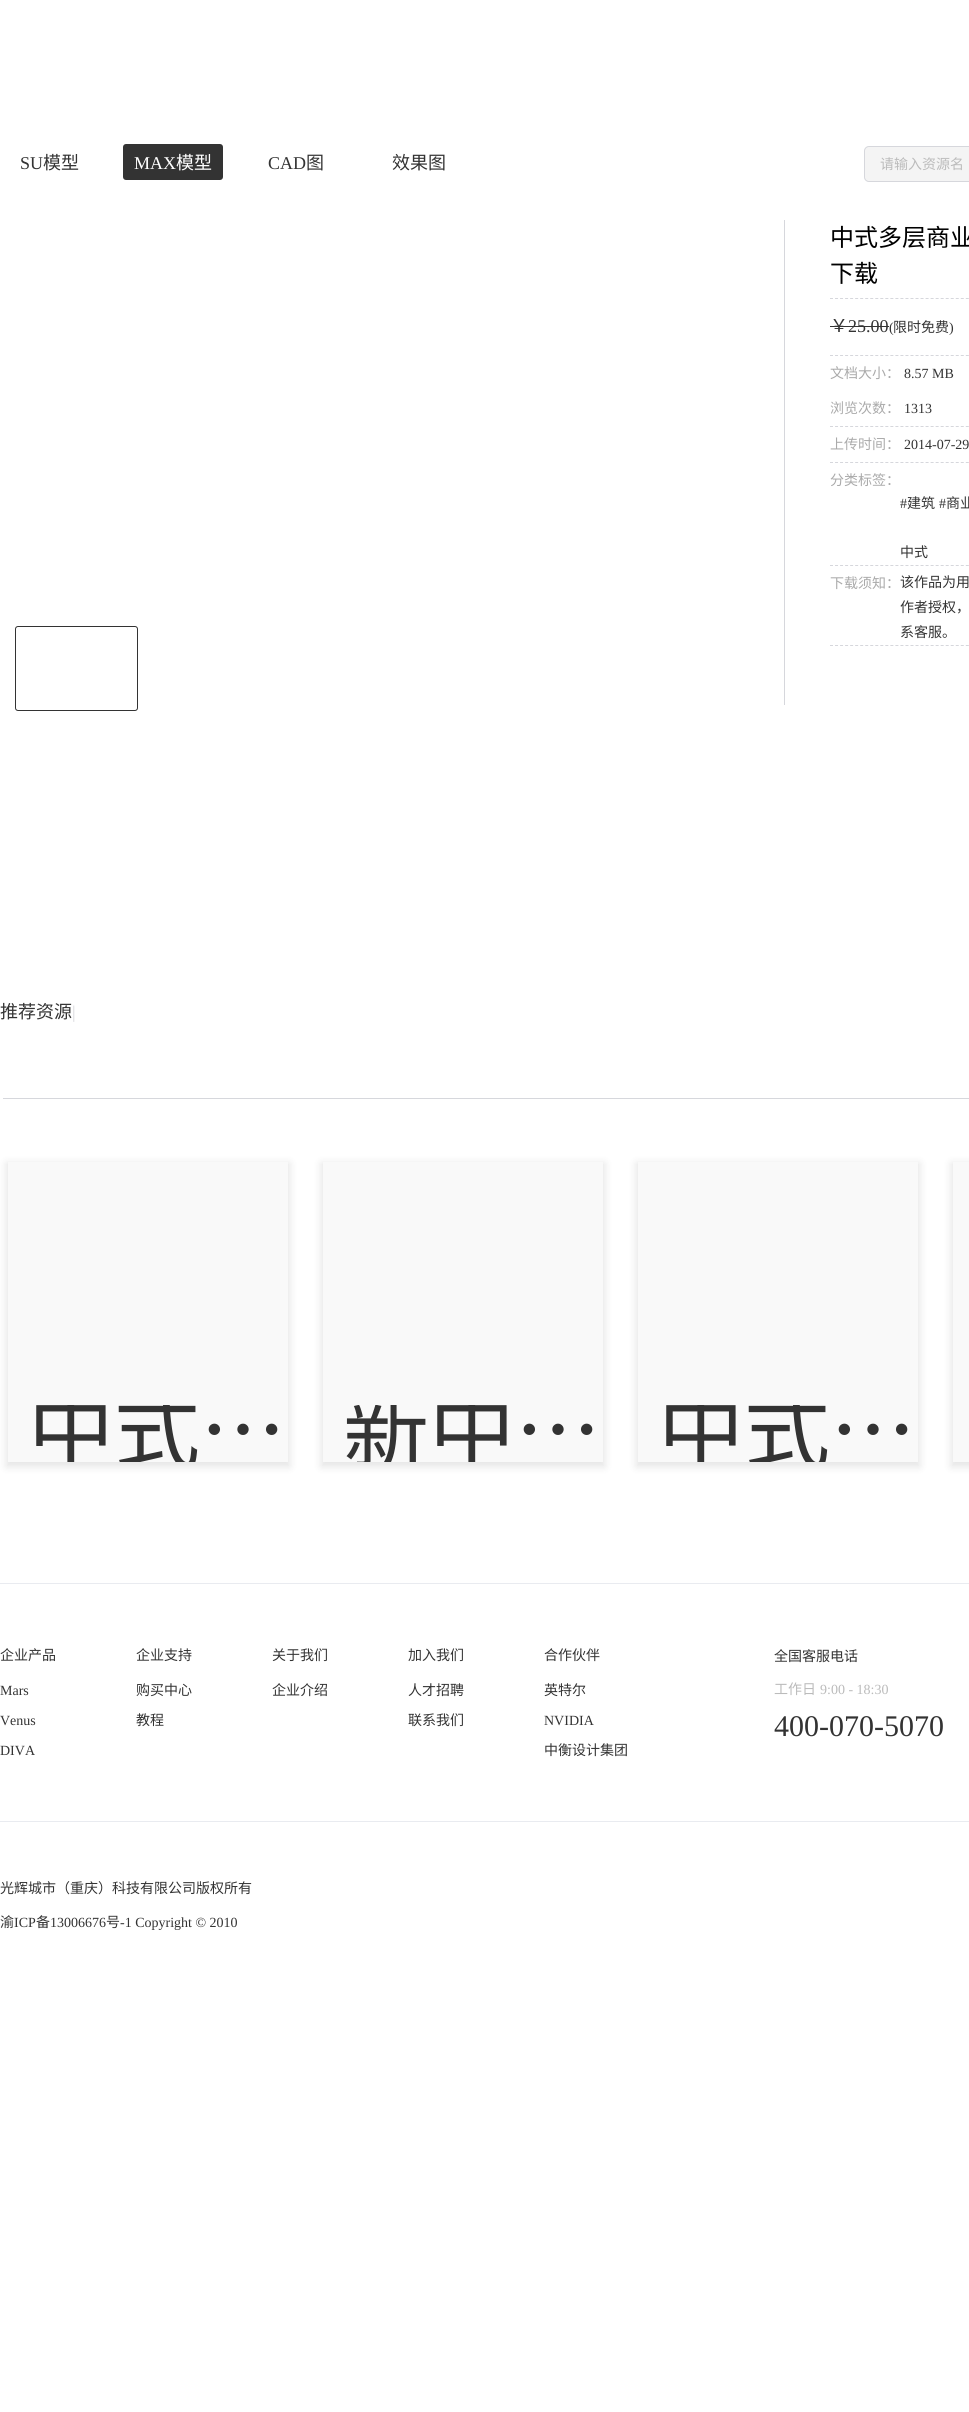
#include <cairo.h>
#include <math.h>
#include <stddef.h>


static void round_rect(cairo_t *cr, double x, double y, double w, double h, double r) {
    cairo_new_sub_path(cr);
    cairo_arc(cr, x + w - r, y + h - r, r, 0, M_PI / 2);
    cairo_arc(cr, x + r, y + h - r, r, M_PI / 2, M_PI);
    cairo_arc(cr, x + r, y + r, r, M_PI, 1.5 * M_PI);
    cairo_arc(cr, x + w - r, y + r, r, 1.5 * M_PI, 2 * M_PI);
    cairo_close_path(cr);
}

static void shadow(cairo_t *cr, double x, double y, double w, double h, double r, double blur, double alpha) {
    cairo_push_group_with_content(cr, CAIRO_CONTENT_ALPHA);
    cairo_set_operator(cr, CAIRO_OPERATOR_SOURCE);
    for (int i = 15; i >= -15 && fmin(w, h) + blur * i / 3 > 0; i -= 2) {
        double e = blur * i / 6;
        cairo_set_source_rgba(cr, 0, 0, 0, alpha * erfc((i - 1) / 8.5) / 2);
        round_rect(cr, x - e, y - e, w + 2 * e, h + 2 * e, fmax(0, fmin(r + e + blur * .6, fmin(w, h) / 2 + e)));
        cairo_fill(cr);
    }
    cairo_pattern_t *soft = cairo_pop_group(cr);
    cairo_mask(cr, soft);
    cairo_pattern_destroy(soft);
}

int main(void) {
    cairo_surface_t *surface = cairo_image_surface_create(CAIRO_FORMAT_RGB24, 969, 2412);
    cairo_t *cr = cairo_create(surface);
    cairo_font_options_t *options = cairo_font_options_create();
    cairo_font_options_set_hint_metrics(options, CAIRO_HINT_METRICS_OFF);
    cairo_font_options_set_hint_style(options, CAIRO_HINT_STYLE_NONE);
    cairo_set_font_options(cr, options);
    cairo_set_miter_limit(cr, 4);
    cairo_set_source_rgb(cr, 1, 1, 1);
    cairo_paint(cr);
    cairo_select_font_face(cr, "Liberation Serif", CAIRO_FONT_SLANT_NORMAL, CAIRO_FONT_WEIGHT_NORMAL);
    cairo_set_font_size(cr, 18);
    cairo_set_source_rgb(cr, 0.2, 0.2, 0.2);
    cairo_move_to(cr, 20, 169);
    cairo_show_text(cr, "SU");
    cairo_select_font_face(cr, "Noto Sans CJK SC", CAIRO_FONT_SLANT_NORMAL, CAIRO_FONT_WEIGHT_NORMAL);
    cairo_move_to(cr, 43, 169);
    cairo_show_text(cr, "模型");
    round_rect(cr, 123, 144, 100, 36, 3);
    cairo_fill(cr);
    cairo_select_font_face(cr, "Liberation Serif", CAIRO_FONT_SLANT_NORMAL, CAIRO_FONT_WEIGHT_NORMAL);
    cairo_set_source_rgb(cr, 1, 1, 1);
    cairo_move_to(cr, 134, 169);
    cairo_show_text(cr, "MAX");
    cairo_select_font_face(cr, "Noto Sans CJK SC", CAIRO_FONT_SLANT_NORMAL, CAIRO_FONT_WEIGHT_NORMAL);
    cairo_move_to(cr, 176, 169);
    cairo_show_text(cr, "模型");
    cairo_select_font_face(cr, "Liberation Serif", CAIRO_FONT_SLANT_NORMAL, CAIRO_FONT_WEIGHT_NORMAL);
    cairo_set_source_rgb(cr, 0.2, 0.2, 0.2);
    cairo_move_to(cr, 268, 169);
    cairo_show_text(cr, "CAD");
    cairo_select_font_face(cr, "Noto Sans CJK SC", CAIRO_FONT_SLANT_NORMAL, CAIRO_FONT_WEIGHT_NORMAL);
    cairo_move_to(cr, 306, 169);
    cairo_show_text(cr, "图");
    cairo_move_to(cr, 392, 169);
    cairo_show_text(cr, "效果图");
    cairo_set_source_rgb(cr, 0.957, 0.957, 0.957);
    cairo_new_path(cr);
    cairo_move_to(cr, 869, 146.5);
    cairo_line_to(cr, 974.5, 146.5);
    cairo_line_to(cr, 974.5, 181.5);
    cairo_line_to(cr, 869, 181.5);
    cairo_curve_to(cr, 866.5, 181.5, 864.5, 179.5, 864.5, 177);
    cairo_line_to(cr, 864.5, 151);
    cairo_curve_to(cr, 864.5, 148.5, 866.5, 146.5, 869, 146.5);
    cairo_close_path(cr);
    cairo_fill_preserve(cr);
    cairo_set_source_rgb(cr, 0.839, 0.843, 0.863);
    cairo_set_line_width(cr, 1);
    cairo_stroke(cr);
    cairo_set_font_size(cr, 14);
    cairo_set_source_rgb(cr, 0.733, 0.733, 0.733);
    cairo_move_to(cr, 880, 169);
    cairo_show_text(cr, "请输入资源名");
    cairo_set_source_rgb(cr, 0.839, 0.843, 0.863);
    cairo_rectangle(cr, 784, 220, 1, 485);
    cairo_fill(cr);
    cairo_new_path(cr);
    cairo_move_to(cr, 830, 298.5);
    cairo_line_to(cr, 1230, 298.5);
    cairo_set_dash(cr, (double[]){3, 2.03}, 2, 0);
    cairo_stroke(cr);
    cairo_set_font_size(cr, 24);
    cairo_set_source_rgb(cr, 0, 0, 0);
    cairo_move_to(cr, 830, 246);
    cairo_show_text(cr, "中式多层商业");
    cairo_move_to(cr, 830, 282);
    cairo_show_text(cr, "下载");
    cairo_new_path(cr);
    cairo_move_to(cr, 830, 355.5);
    cairo_line_to(cr, 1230, 355.5);
    cairo_set_source_rgb(cr, 0.839, 0.843, 0.863);
    cairo_stroke(cr);
    cairo_set_font_size(cr, 18);
    cairo_set_source_rgb(cr, 0.2, 0.2, 0.2);
    cairo_move_to(cr, 830, 332);
    cairo_show_text(cr, "￥");
    cairo_select_font_face(cr, "Liberation Serif", CAIRO_FONT_SLANT_NORMAL, CAIRO_FONT_WEIGHT_NORMAL);
    cairo_move_to(cr, 848, 332);
    cairo_show_text(cr, "25.00");
    cairo_rectangle(cr, 830, 326, 59, 1);
    cairo_fill(cr);
    cairo_set_font_size(cr, 14);
    cairo_move_to(cr, 889, 332);
    cairo_show_text(cr, "(");
    cairo_select_font_face(cr, "Noto Sans CJK SC", CAIRO_FONT_SLANT_NORMAL, CAIRO_FONT_WEIGHT_NORMAL);
    cairo_move_to(cr, 893, 332);
    cairo_show_text(cr, "限时免费");
    cairo_select_font_face(cr, "Liberation Serif", CAIRO_FONT_SLANT_NORMAL, CAIRO_FONT_WEIGHT_NORMAL);
    cairo_move_to(cr, 949, 332);
    cairo_show_text(cr, ")");
    cairo_new_path(cr);
    cairo_move_to(cr, 830, 426.5);
    cairo_line_to(cr, 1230, 426.5);
    cairo_set_source_rgb(cr, 0.839, 0.843, 0.863);
    cairo_stroke(cr);
    cairo_select_font_face(cr, "Noto Sans CJK SC", CAIRO_FONT_SLANT_NORMAL, CAIRO_FONT_WEIGHT_NORMAL);
    cairo_set_source_rgb(cr, 0.667, 0.667, 0.667);
    cairo_move_to(cr, 830, 378);
    cairo_show_text(cr, "文档大小：");
    cairo_select_font_face(cr, "Liberation Serif", CAIRO_FONT_SLANT_NORMAL, CAIRO_FONT_WEIGHT_NORMAL);
    cairo_set_source_rgb(cr, 0.2, 0.2, 0.2);
    cairo_move_to(cr, 904, 378);
    cairo_show_text(cr, "8.57 MB");
    cairo_select_font_face(cr, "Noto Sans CJK SC", CAIRO_FONT_SLANT_NORMAL, CAIRO_FONT_WEIGHT_NORMAL);
    cairo_set_source_rgb(cr, 0.667, 0.667, 0.667);
    cairo_move_to(cr, 830, 413);
    cairo_show_text(cr, "浏览次数：");
    cairo_select_font_face(cr, "Liberation Serif", CAIRO_FONT_SLANT_NORMAL, CAIRO_FONT_WEIGHT_NORMAL);
    cairo_set_source_rgb(cr, 0.2, 0.2, 0.2);
    cairo_move_to(cr, 904, 413);
    cairo_show_text(cr, "1313");
    cairo_new_path(cr);
    cairo_move_to(cr, 830, 462.5);
    cairo_line_to(cr, 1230, 462.5);
    cairo_set_source_rgb(cr, 0.839, 0.843, 0.863);
    cairo_stroke(cr);
    cairo_select_font_face(cr, "Noto Sans CJK SC", CAIRO_FONT_SLANT_NORMAL, CAIRO_FONT_WEIGHT_NORMAL);
    cairo_set_source_rgb(cr, 0.667, 0.667, 0.667);
    cairo_move_to(cr, 830, 449);
    cairo_show_text(cr, "上传时间：");
    cairo_select_font_face(cr, "Liberation Serif", CAIRO_FONT_SLANT_NORMAL, CAIRO_FONT_WEIGHT_NORMAL);
    cairo_set_source_rgb(cr, 0.2, 0.2, 0.2);
    cairo_move_to(cr, 904, 449);
    cairo_show_text(cr, "2014-07-29");
    cairo_new_path(cr);
    cairo_move_to(cr, 830, 565.5);
    cairo_line_to(cr, 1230, 565.5);
    cairo_set_source_rgb(cr, 0.839, 0.843, 0.863);
    cairo_stroke(cr);
    cairo_select_font_face(cr, "Noto Sans CJK SC", CAIRO_FONT_SLANT_NORMAL, CAIRO_FONT_WEIGHT_NORMAL);
    cairo_set_source_rgb(cr, 0.667, 0.667, 0.667);
    cairo_move_to(cr, 830, 485);
    cairo_show_text(cr, "分类标签：");
    cairo_select_font_face(cr, "Liberation Serif", CAIRO_FONT_SLANT_NORMAL, CAIRO_FONT_WEIGHT_NORMAL);
    cairo_set_source_rgb(cr, 0.2, 0.2, 0.2);
    cairo_move_to(cr, 900, 508);
    cairo_show_text(cr, "#");
    cairo_select_font_face(cr, "Noto Sans CJK SC", CAIRO_FONT_SLANT_NORMAL, CAIRO_FONT_WEIGHT_NORMAL);
    cairo_move_to(cr, 907, 508);
    cairo_show_text(cr, "建筑");
    cairo_select_font_face(cr, "Liberation Serif", CAIRO_FONT_SLANT_NORMAL, CAIRO_FONT_WEIGHT_NORMAL);
    cairo_move_to(cr, 939, 508);
    cairo_show_text(cr, "#");
    cairo_select_font_face(cr, "Noto Sans CJK SC", CAIRO_FONT_SLANT_NORMAL, CAIRO_FONT_WEIGHT_NORMAL);
    cairo_move_to(cr, 946, 508);
    cairo_show_text(cr, "商业");
    cairo_move_to(cr, 900, 557);
    cairo_show_text(cr, "中式");
    cairo_new_path(cr);
    cairo_move_to(cr, 830, 645.5);
    cairo_line_to(cr, 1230, 645.5);
    cairo_set_source_rgb(cr, 0.839, 0.843, 0.863);
    cairo_stroke(cr);
    cairo_set_source_rgb(cr, 0.667, 0.667, 0.667);
    cairo_move_to(cr, 830, 588);
    cairo_show_text(cr, "下载须知：");
    cairo_set_source_rgb(cr, 0.2, 0.2, 0.2);
    cairo_move_to(cr, 900, 587);
    cairo_show_text(cr, "该作品为用");
    cairo_move_to(cr, 900, 612);
    cairo_show_text(cr, "作者授权，");
    cairo_move_to(cr, 900, 637);
    cairo_show_text(cr, "系客服。");
    round_rect(cr, 15.5, 626.5, 122, 84, 2.5);
    cairo_set_dash(cr, NULL, 0, 0);
    cairo_stroke(cr);
    cairo_set_font_size(cr, 18);
    cairo_move_to(cr, 0, 1018);
    cairo_show_text(cr, "推荐资源");
    cairo_select_font_face(cr, "Liberation Serif", CAIRO_FONT_SLANT_NORMAL, CAIRO_FONT_WEIGHT_NORMAL);
    cairo_set_source_rgb(cr, 0.839, 0.843, 0.863);
    cairo_move_to(cr, 72, 1018);
    cairo_show_text(cr, "|");
    cairo_rectangle(cr, 3, 1098, 966, 1);
    cairo_fill(cr);
    cairo_set_source_rgb(cr, 0, 0, 0);
    shadow(cr, 6, 1163, 284, 304, 0, 4, 0.1);
    cairo_set_source_rgb(cr, 0.973, 0.973, 0.973);
    cairo_rectangle(cr, 8, 1162, 280, 300);
    cairo_fill(cr);
    cairo_save(cr);
    cairo_rectangle(cr, 28, 1405, 310, 57);
    cairo_clip(cr);
    cairo_select_font_face(cr, "Noto Sans CJK SC", CAIRO_FONT_SLANT_NORMAL, CAIRO_FONT_WEIGHT_NORMAL);
    cairo_set_font_size(cr, 86);
    cairo_set_source_rgb(cr, 0.2, 0.2, 0.2);
    cairo_move_to(cr, 28, 1462);
    cairo_show_text(cr, "中式…");
    cairo_restore(cr);
    cairo_set_source_rgb(cr, 0, 0, 0);
    shadow(cr, 321, 1163, 284, 304, 0, 4, 0.1);
    cairo_set_source_rgb(cr, 0.973, 0.973, 0.973);
    cairo_rectangle(cr, 323, 1162, 280, 300);
    cairo_fill(cr);
    cairo_save(cr);
    cairo_rectangle(cr, 343, 1405, 310, 57);
    cairo_clip(cr);
    cairo_select_font_face(cr, "Noto Sans CJK SC", CAIRO_FONT_SLANT_NORMAL, CAIRO_FONT_WEIGHT_NORMAL);
    cairo_set_font_size(cr, 86);
    cairo_set_source_rgb(cr, 0.2, 0.2, 0.2);
    cairo_move_to(cr, 343, 1462);
    cairo_show_text(cr, "新中…");
    cairo_restore(cr);
    cairo_set_source_rgb(cr, 0, 0, 0);
    shadow(cr, 636, 1163, 284, 304, 0, 4, 0.1);
    cairo_set_source_rgb(cr, 0.973, 0.973, 0.973);
    cairo_rectangle(cr, 638, 1162, 280, 300);
    cairo_fill(cr);
    cairo_save(cr);
    cairo_rectangle(cr, 658, 1405, 310, 57);
    cairo_clip(cr);
    cairo_select_font_face(cr, "Noto Sans CJK SC", CAIRO_FONT_SLANT_NORMAL, CAIRO_FONT_WEIGHT_NORMAL);
    cairo_set_font_size(cr, 86);
    cairo_set_source_rgb(cr, 0.2, 0.2, 0.2);
    cairo_move_to(cr, 658, 1462);
    cairo_show_text(cr, "中式…");
    cairo_restore(cr);
    cairo_set_source_rgb(cr, 0, 0, 0);
    shadow(cr, 951, 1163, 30, 304, 0, 4, 0.1);
    cairo_set_source_rgb(cr, 0.973, 0.973, 0.973);
    cairo_rectangle(cr, 953, 1162, 16, 300);
    cairo_fill(cr);
    cairo_set_source_rgb(cr, 0.914, 0.918, 0.941);
    cairo_rectangle(cr, 0, 1583, 969, 1);
    cairo_fill(cr);
    cairo_select_font_face(cr, "Noto Sans CJK SC", CAIRO_FONT_SLANT_NORMAL, CAIRO_FONT_WEIGHT_NORMAL);
    cairo_set_font_size(cr, 14);
    cairo_set_source_rgb(cr, 0.2, 0.2, 0.2);
    cairo_move_to(cr, 0, 1660);
    cairo_show_text(cr, "企业产品");
    cairo_select_font_face(cr, "Liberation Serif", CAIRO_FONT_SLANT_NORMAL, CAIRO_FONT_WEIGHT_NORMAL);
    cairo_move_to(cr, 0, 1695);
    cairo_show_text(cr, "Mars");
    cairo_move_to(cr, 0, 1725);
    cairo_show_text(cr, "Venus");
    cairo_move_to(cr, 0, 1755);
    cairo_show_text(cr, "DIVA");
    cairo_select_font_face(cr, "Noto Sans CJK SC", CAIRO_FONT_SLANT_NORMAL, CAIRO_FONT_WEIGHT_NORMAL);
    cairo_move_to(cr, 136, 1660);
    cairo_show_text(cr, "企业支持");
    cairo_move_to(cr, 136, 1695);
    cairo_show_text(cr, "购买中心");
    cairo_move_to(cr, 136, 1725);
    cairo_show_text(cr, "教程");
    cairo_move_to(cr, 272, 1660);
    cairo_show_text(cr, "关于我们");
    cairo_move_to(cr, 272, 1695);
    cairo_show_text(cr, "企业介绍");
    cairo_move_to(cr, 408, 1660);
    cairo_show_text(cr, "加入我们");
    cairo_move_to(cr, 408, 1695);
    cairo_show_text(cr, "人才招聘");
    cairo_move_to(cr, 408, 1725);
    cairo_show_text(cr, "联系我们");
    cairo_move_to(cr, 544, 1660);
    cairo_show_text(cr, "合作伙伴");
    cairo_move_to(cr, 544, 1695);
    cairo_show_text(cr, "英特尔");
    cairo_select_font_face(cr, "Liberation Serif", CAIRO_FONT_SLANT_NORMAL, CAIRO_FONT_WEIGHT_NORMAL);
    cairo_move_to(cr, 544, 1725);
    cairo_show_text(cr, "NVIDIA");
    cairo_select_font_face(cr, "Noto Sans CJK SC", CAIRO_FONT_SLANT_NORMAL, CAIRO_FONT_WEIGHT_NORMAL);
    cairo_move_to(cr, 544, 1755);
    cairo_show_text(cr, "中衡设计集团");
    cairo_move_to(cr, 774, 1661);
    cairo_show_text(cr, "全国客服电话");
    cairo_set_source_rgb(cr, 0.733, 0.733, 0.733);
    cairo_move_to(cr, 774, 1694);
    cairo_show_text(cr, "工作日");
    cairo_select_font_face(cr, "Liberation Serif", CAIRO_FONT_SLANT_NORMAL, CAIRO_FONT_WEIGHT_NORMAL);
    cairo_move_to(cr, 820, 1694);
    cairo_show_text(cr, "9:00 - 18:30");
    cairo_set_font_size(cr, 30);
    cairo_set_source_rgb(cr, 0.2, 0.2, 0.2);
    cairo_move_to(cr, 774, 1736);
    cairo_show_text(cr, "400-070-5070");
    cairo_set_source_rgb(cr, 0.914, 0.918, 0.941);
    cairo_rectangle(cr, 0, 1821, 969, 1);
    cairo_fill(cr);
    cairo_select_font_face(cr, "Noto Sans CJK SC", CAIRO_FONT_SLANT_NORMAL, CAIRO_FONT_WEIGHT_NORMAL);
    cairo_set_font_size(cr, 14);
    cairo_set_source_rgb(cr, 0.2, 0.2, 0.2);
    cairo_move_to(cr, 0, 1893);
    cairo_show_text(cr, "光辉城市（重庆）科技有限公司版权所有");
    cairo_move_to(cr, 0, 1927);
    cairo_show_text(cr, "渝");
    cairo_select_font_face(cr, "Liberation Serif", CAIRO_FONT_SLANT_NORMAL, CAIRO_FONT_WEIGHT_NORMAL);
    cairo_move_to(cr, 14, 1927);
    cairo_show_text(cr, "ICP");
    cairo_select_font_face(cr, "Noto Sans CJK SC", CAIRO_FONT_SLANT_NORMAL, CAIRO_FONT_WEIGHT_NORMAL);
    cairo_move_to(cr, 36, 1927);
    cairo_show_text(cr, "备");
    cairo_select_font_face(cr, "Liberation Serif", CAIRO_FONT_SLANT_NORMAL, CAIRO_FONT_WEIGHT_NORMAL);
    cairo_move_to(cr, 50, 1927);
    cairo_show_text(cr, "13006676");
    cairo_select_font_face(cr, "Noto Sans CJK SC", CAIRO_FONT_SLANT_NORMAL, CAIRO_FONT_WEIGHT_NORMAL);
    cairo_move_to(cr, 106, 1927);
    cairo_show_text(cr, "号");
    cairo_select_font_face(cr, "Liberation Serif", CAIRO_FONT_SLANT_NORMAL, CAIRO_FONT_WEIGHT_NORMAL);
    cairo_move_to(cr, 120, 1927);
    cairo_show_text(cr, "-1 Copyright © 2010");
    cairo_surface_write_to_png(surface, "page.png");
    cairo_font_options_destroy(options);
    cairo_destroy(cr);
    cairo_surface_destroy(surface);
    return 0;
}
